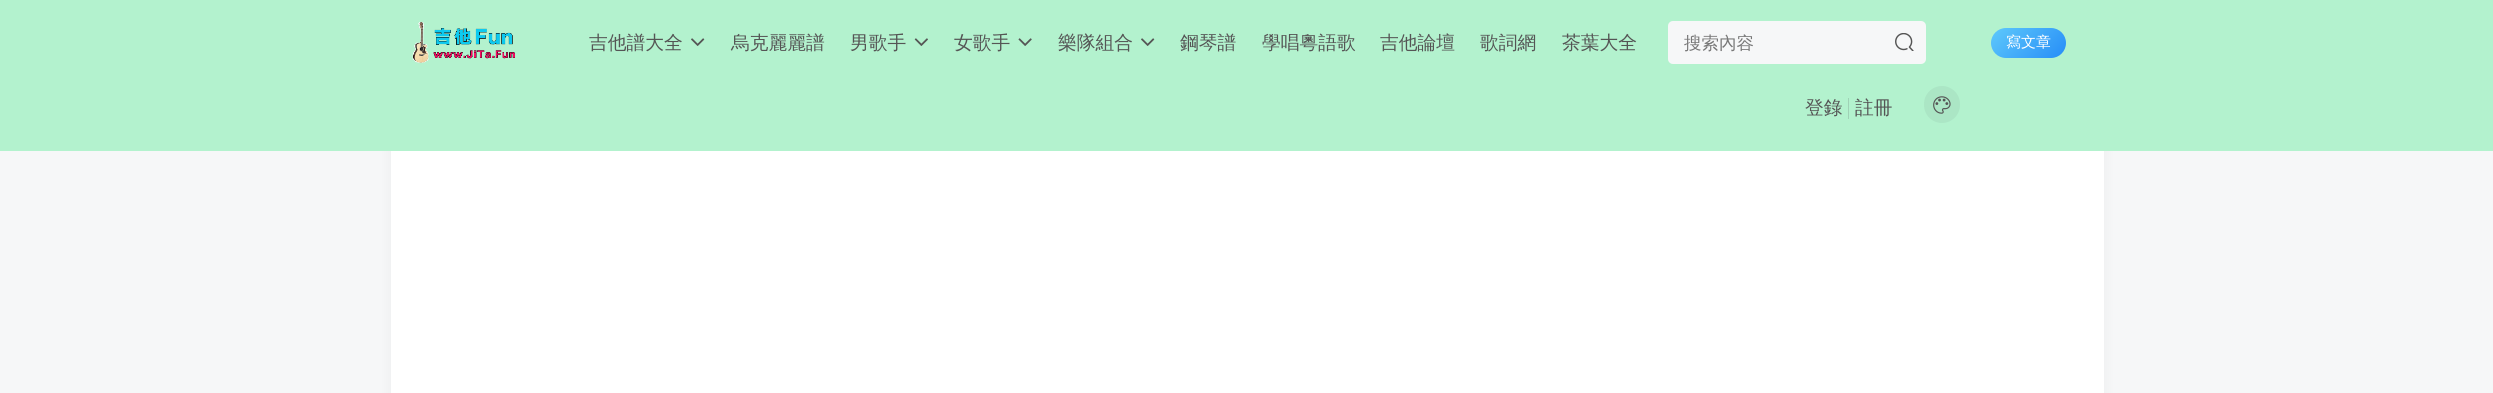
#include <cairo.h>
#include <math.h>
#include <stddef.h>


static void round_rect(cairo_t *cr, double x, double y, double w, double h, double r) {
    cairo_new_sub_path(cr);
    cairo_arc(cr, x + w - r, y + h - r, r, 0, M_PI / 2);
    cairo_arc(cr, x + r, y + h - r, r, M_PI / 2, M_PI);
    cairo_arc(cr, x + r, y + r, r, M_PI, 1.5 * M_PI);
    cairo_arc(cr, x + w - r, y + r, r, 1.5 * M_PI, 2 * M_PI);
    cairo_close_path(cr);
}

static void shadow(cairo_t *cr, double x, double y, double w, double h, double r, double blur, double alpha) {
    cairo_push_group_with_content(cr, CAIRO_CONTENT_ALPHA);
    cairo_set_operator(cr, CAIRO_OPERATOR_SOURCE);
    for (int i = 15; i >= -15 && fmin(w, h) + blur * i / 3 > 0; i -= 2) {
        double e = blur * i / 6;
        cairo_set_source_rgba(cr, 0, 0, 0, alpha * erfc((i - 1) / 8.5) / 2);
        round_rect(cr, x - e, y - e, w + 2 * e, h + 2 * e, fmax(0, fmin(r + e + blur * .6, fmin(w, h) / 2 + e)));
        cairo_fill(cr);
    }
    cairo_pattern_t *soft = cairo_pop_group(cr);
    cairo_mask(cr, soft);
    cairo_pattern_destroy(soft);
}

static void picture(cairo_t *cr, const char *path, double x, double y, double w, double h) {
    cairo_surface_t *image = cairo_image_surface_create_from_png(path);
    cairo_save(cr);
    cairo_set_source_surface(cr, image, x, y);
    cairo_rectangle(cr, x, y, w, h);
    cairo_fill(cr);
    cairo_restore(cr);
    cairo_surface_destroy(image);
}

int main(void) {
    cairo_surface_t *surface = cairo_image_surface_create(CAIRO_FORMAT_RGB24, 2493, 393);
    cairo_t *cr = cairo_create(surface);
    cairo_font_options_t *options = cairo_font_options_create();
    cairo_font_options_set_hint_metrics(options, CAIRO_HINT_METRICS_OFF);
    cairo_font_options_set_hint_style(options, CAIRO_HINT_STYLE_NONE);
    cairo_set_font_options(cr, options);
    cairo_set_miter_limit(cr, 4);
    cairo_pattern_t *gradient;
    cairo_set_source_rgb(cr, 0.961, 0.965, 0.969);
    cairo_paint(cr);
    cairo_set_source_rgb(cr, 0.455, 0.455, 0.455);
    shadow(cr, 391, 110, 1713, 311, 10, 6, 0.08);
    cairo_set_source_rgb(cr, 0.702, 0.949, 0.808);
    cairo_rectangle(cr, 0, 0, 2493, 151);
    cairo_fill(cr);
    picture(cr, "img1.png", 412, 22, 103, 41);
    cairo_select_font_face(cr, "WenQuanYi Zen Hei Medium", CAIRO_FONT_SLANT_NORMAL, CAIRO_FONT_WEIGHT_NORMAL);
    cairo_set_font_size(cr, 18.75);
    cairo_set_source_rgb(cr, 0.333, 0.333, 0.333);
    cairo_move_to(cr, 589, 49);
    cairo_show_text(cr, "吉他譜大全");
    picture(cr, "img2.png", 691, 38, 14, 8);
    cairo_move_to(cr, 731, 49);
    cairo_show_text(cr, "烏克麗麗譜");
    cairo_move_to(cr, 850, 49);
    cairo_show_text(cr, "男歌手");
    picture(cr, "img3.png", 914, 38, 14, 8);
    cairo_move_to(cr, 954, 49);
    cairo_show_text(cr, "女歌手");
    picture(cr, "img4.png", 1018, 38, 14, 8);
    cairo_move_to(cr, 1058, 49);
    cairo_show_text(cr, "樂隊組合");
    picture(cr, "img2.png", 1141, 38, 14, 8);
    cairo_move_to(cr, 1180, 49);
    cairo_show_text(cr, "鋼琴譜");
    cairo_move_to(cr, 1262, 49);
    cairo_show_text(cr, "學唱粵語歌");
    cairo_move_to(cr, 1380, 49);
    cairo_show_text(cr, "吉他論壇");
    cairo_move_to(cr, 1480, 49);
    cairo_show_text(cr, "歌詞網");
    cairo_move_to(cr, 1562, 49);
    cairo_show_text(cr, "茶葉大全");
    cairo_set_source_rgb(cr, 0.961, 0.965, 0.969);
    round_rect(cr, 1668, 21, 258, 43, 5);
    cairo_fill(cr);
    cairo_set_font_size(cr, 17.5);
    cairo_set_source_rgb(cr, 0.467, 0.467, 0.467);
    cairo_move_to(cr, 1684, 49);
    cairo_show_text(cr, "搜索內容");
    picture(cr, "img5.png", 1895, 33, 19, 18);
    gradient = cairo_pattern_create_linear(2003, 16, 2055, 69);
    cairo_pattern_add_color_stop_rgba(gradient, 0.1, 0.349, 0.765, 0.984, 1);
    cairo_pattern_add_color_stop_rgba(gradient, 1, 0.149, 0.553, 0.969, 1);
    cairo_set_source(cr, gradient);
    cairo_pattern_destroy(gradient);
    round_rect(cr, 1991, 28, 75, 30, 15);
    cairo_fill(cr);
    cairo_set_font_size(cr, 15);
    cairo_set_source_rgb(cr, 1, 1, 1);
    cairo_move_to(cr, 2006, 47);
    cairo_show_text(cr, "寫文章");
    cairo_set_font_size(cr, 18.75);
    cairo_set_source_rgb(cr, 0.333, 0.333, 0.333);
    cairo_move_to(cr, 1805, 114);
    cairo_show_text(cr, "登錄");
    cairo_set_source_rgb(cr, 0.624, 0.824, 0.714);
    cairo_rectangle(cr, 1848, 98, 1, 21);
    cairo_fill(cr);
    cairo_set_source_rgb(cr, 0.333, 0.333, 0.333);
    cairo_move_to(cr, 1855, 114);
    cairo_show_text(cr, "註冊");
    cairo_set_source_rgb(cr, 0.671, 0.902, 0.773);
    round_rect(cr, 1924, 86, 36, 37, 18);
    cairo_fill(cr);
    picture(cr, "img6.png", 1933, 96, 18, 18);
    cairo_set_source_rgb(cr, 1, 1, 1);
    cairo_rectangle(cr, 391, 151, 1713, 242);
    cairo_fill(cr);
    cairo_surface_write_to_png(surface, "page.png");
    cairo_font_options_destroy(options);
    cairo_destroy(cr);
    cairo_surface_destroy(surface);
    return 0;
}
